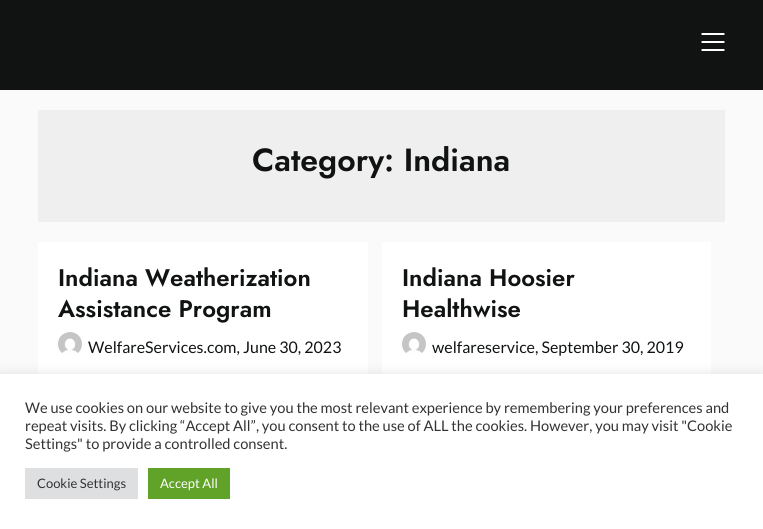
#include <cairo.h>
#include <math.h>
#include <stddef.h>


static void round_rect(cairo_t *cr, double x, double y, double w, double h, double r) {
    cairo_new_sub_path(cr);
    cairo_arc(cr, x + w - r, y + h - r, r, 0, M_PI / 2);
    cairo_arc(cr, x + r, y + h - r, r, M_PI / 2, M_PI);
    cairo_arc(cr, x + r, y + r, r, M_PI, 1.5 * M_PI);
    cairo_arc(cr, x + w - r, y + r, r, 1.5 * M_PI, 2 * M_PI);
    cairo_close_path(cr);
}

static void shadow(cairo_t *cr, double x, double y, double w, double h, double r, double blur, double alpha) {
    cairo_push_group_with_content(cr, CAIRO_CONTENT_ALPHA);
    cairo_set_operator(cr, CAIRO_OPERATOR_SOURCE);
    for (int i = 15; i >= -15 && fmin(w, h) + blur * i / 3 > 0; i -= 2) {
        double e = blur * i / 6;
        cairo_set_source_rgba(cr, 0, 0, 0, alpha * erfc((i - 1) / 8.5) / 2);
        round_rect(cr, x - e, y - e, w + 2 * e, h + 2 * e, fmax(0, fmin(r + e + blur * .6, fmin(w, h) / 2 + e)));
        cairo_fill(cr);
    }
    cairo_pattern_t *soft = cairo_pop_group(cr);
    cairo_mask(cr, soft);
    cairo_pattern_destroy(soft);
}

static void picture(cairo_t *cr, const char *path, double x, double y, double w, double h) {
    cairo_surface_t *image = cairo_image_surface_create_from_png(path);
    cairo_save(cr);
    cairo_set_source_surface(cr, image, x, y);
    cairo_rectangle(cr, x, y, w, h);
    cairo_fill(cr);
    cairo_restore(cr);
    cairo_surface_destroy(image);
}

int main(void) {
    cairo_surface_t *surface = cairo_image_surface_create(CAIRO_FORMAT_RGB24, 763, 529);
    cairo_t *cr = cairo_create(surface);
    cairo_font_options_t *options = cairo_font_options_create();
    cairo_font_options_set_hint_metrics(options, CAIRO_HINT_METRICS_OFF);
    cairo_font_options_set_hint_style(options, CAIRO_HINT_STYLE_NONE);
    cairo_set_font_options(cr, options);
    cairo_set_miter_limit(cr, 4);
    cairo_set_source_rgb(cr, 0.98, 0.98, 0.98);
    cairo_paint(cr);
    cairo_set_source_rgb(cr, 0.067, 0.075, 0.078);
    cairo_rectangle(cr, 0, 0, 763, 90);
    cairo_fill(cr);
    picture(cr, "img1.png", 701, 33, 24, 18);
    cairo_set_source_rgb(cr, 0.937, 0.937, 0.937);
    cairo_rectangle(cr, 38, 110, 687, 112);
    cairo_fill(cr);
    cairo_select_font_face(cr, "Jost SemiBold", CAIRO_FONT_SLANT_NORMAL, CAIRO_FONT_WEIGHT_NORMAL);
    cairo_set_font_size(cr, 32);
    cairo_set_source_rgb(cr, 0.067, 0.075, 0.078);
    cairo_move_to(cr, 252, 171);
    cairo_show_text(cr, "Category: Indiana");
    cairo_set_source_rgb(cr, 1, 1, 1);
    cairo_rectangle(cr, 38, 242, 330, 132);
    cairo_fill(cr);
    cairo_set_font_size(cr, 24);
    cairo_set_source_rgb(cr, 0.067, 0.075, 0.078);
    cairo_move_to(cr, 58, 286);
    cairo_show_text(cr, "Indiana Weatherization");
    cairo_move_to(cr, 58, 317);
    cairo_show_text(cr, "Assistance Program");
    picture(cr, "img2.png", 58, 332, 24, 22);
    cairo_select_font_face(cr, "Lato", CAIRO_FONT_SLANT_NORMAL, CAIRO_FONT_WEIGHT_NORMAL);
    cairo_set_font_size(cr, 16);
    cairo_move_to(cr, 88, 353);
    cairo_show_text(cr, "WelfareServices.com, June 30, 2023");
    cairo_set_source_rgb(cr, 1, 1, 1);
    cairo_rectangle(cr, 382, 242, 329, 132);
    cairo_fill(cr);
    cairo_select_font_face(cr, "Jost SemiBold", CAIRO_FONT_SLANT_NORMAL, CAIRO_FONT_WEIGHT_NORMAL);
    cairo_set_font_size(cr, 24);
    cairo_set_source_rgb(cr, 0.067, 0.075, 0.078);
    cairo_move_to(cr, 402, 286);
    cairo_show_text(cr, "Indiana Hoosier");
    cairo_move_to(cr, 402, 317);
    cairo_show_text(cr, "Healthwise");
    picture(cr, "img3.png", 402, 332, 24, 22);
    cairo_select_font_face(cr, "Lato", CAIRO_FONT_SLANT_NORMAL, CAIRO_FONT_WEIGHT_NORMAL);
    cairo_set_font_size(cr, 16);
    cairo_move_to(cr, 432, 353);
    cairo_show_text(cr, "welfareservice, September 30, 2019");
    cairo_set_source_rgb(cr, 0.675, 0.671, 0.671);
    shadow(cr, 0, 373, 763, 155, 0, 5, 0.3);
    cairo_set_source_rgb(cr, 1, 1, 1);
    cairo_rectangle(cr, 0, 374, 763, 155);
    cairo_fill(cr);
    cairo_set_font_size(cr, 14.65);
    cairo_set_source_rgb(cr, 0.2, 0.2, 0.2);
    cairo_move_to(cr, 25, 413);
    cairo_show_text(cr, "We use cookies on our website to give you the most relevant experience by remembering your preferences and");
    cairo_move_to(cr, 25, 431);
    cairo_show_text(cr, "repeat visits. By clicking “Accept All”, you consent to the use of ALL the cookies. However, you may visit \"Cookie");
    cairo_move_to(cr, 25, 449);
    cairo_show_text(cr, "Settings\" to provide a controlled consent.");
    cairo_set_source_rgb(cr, 0.871, 0.875, 0.878);
    cairo_rectangle(cr, 25, 468, 113, 31);
    cairo_fill(cr);
    cairo_set_font_size(cr, 13);
    cairo_set_source_rgb(cr, 0.2, 0.2, 0.2);
    cairo_move_to(cr, 37, 488);
    cairo_show_text(cr, "Cookie Settings");
    cairo_set_source_rgb(cr, 0.38, 0.635, 0.161);
    cairo_rectangle(cr, 148, 468, 82, 31);
    cairo_fill(cr);
    cairo_set_source_rgb(cr, 1, 1, 1);
    cairo_move_to(cr, 160, 488);
    cairo_show_text(cr, "Accept All");
    cairo_surface_write_to_png(surface, "page.png");
    cairo_font_options_destroy(options);
    cairo_destroy(cr);
    cairo_surface_destroy(surface);
    return 0;
}
